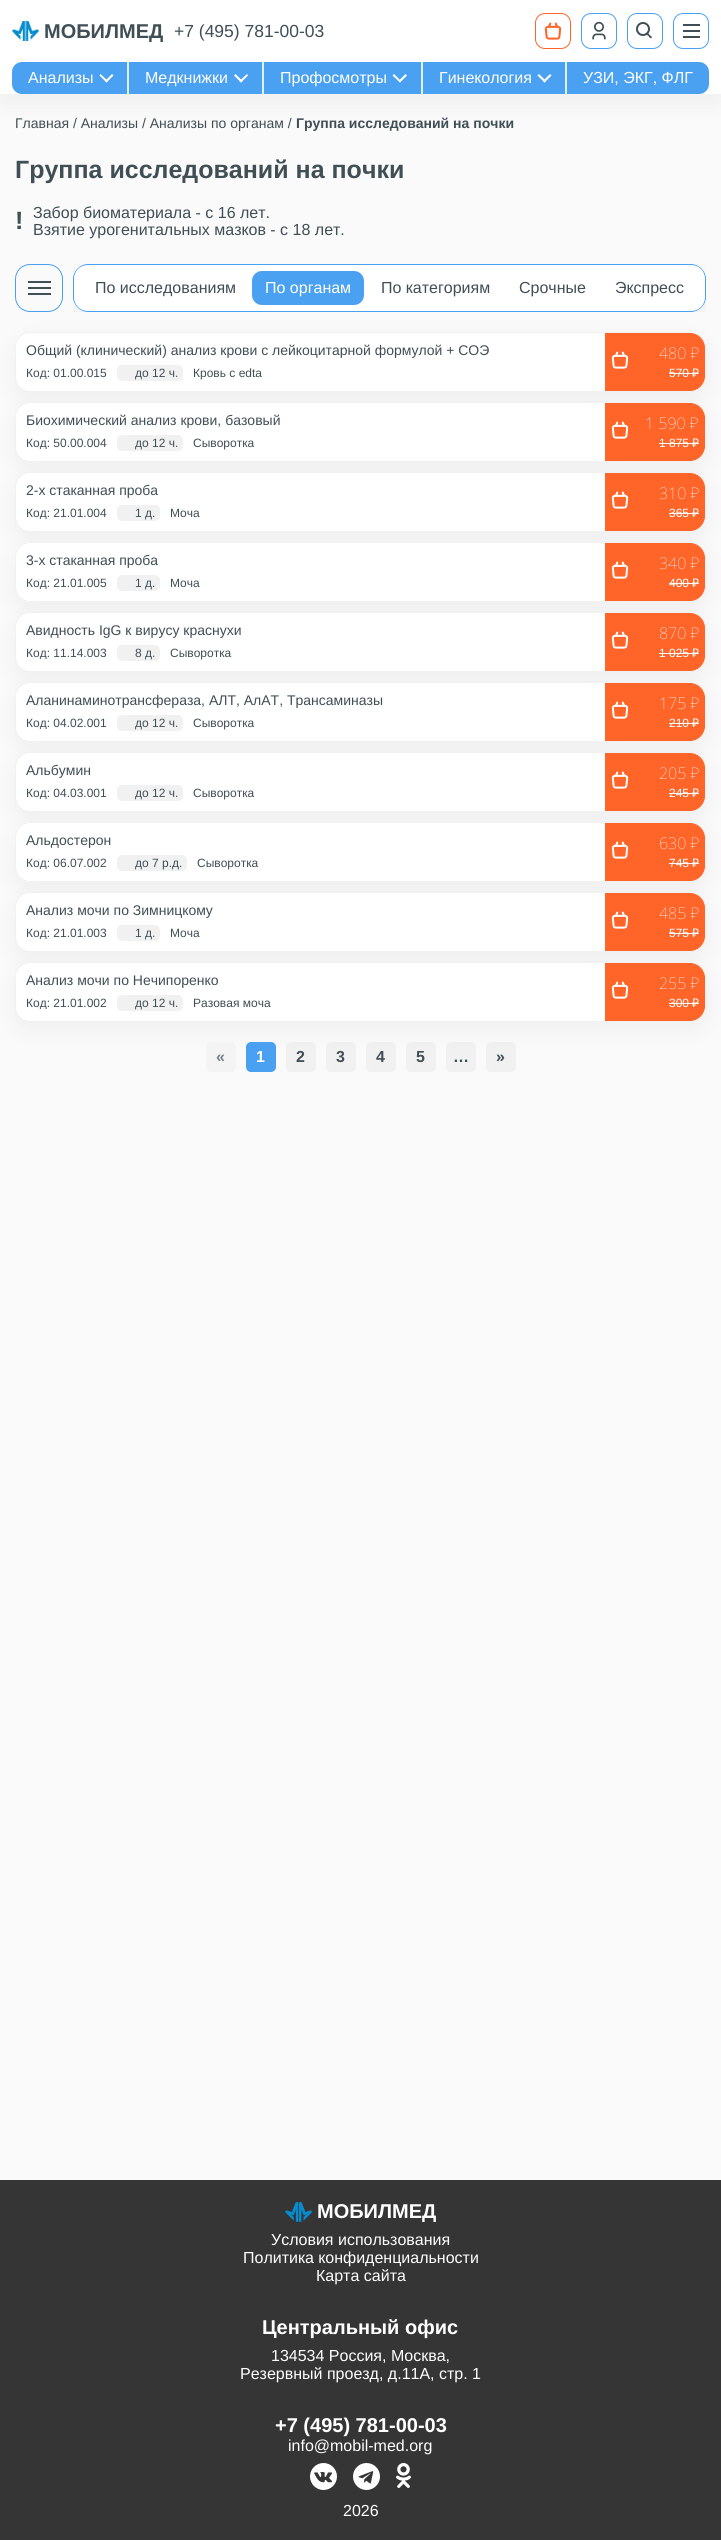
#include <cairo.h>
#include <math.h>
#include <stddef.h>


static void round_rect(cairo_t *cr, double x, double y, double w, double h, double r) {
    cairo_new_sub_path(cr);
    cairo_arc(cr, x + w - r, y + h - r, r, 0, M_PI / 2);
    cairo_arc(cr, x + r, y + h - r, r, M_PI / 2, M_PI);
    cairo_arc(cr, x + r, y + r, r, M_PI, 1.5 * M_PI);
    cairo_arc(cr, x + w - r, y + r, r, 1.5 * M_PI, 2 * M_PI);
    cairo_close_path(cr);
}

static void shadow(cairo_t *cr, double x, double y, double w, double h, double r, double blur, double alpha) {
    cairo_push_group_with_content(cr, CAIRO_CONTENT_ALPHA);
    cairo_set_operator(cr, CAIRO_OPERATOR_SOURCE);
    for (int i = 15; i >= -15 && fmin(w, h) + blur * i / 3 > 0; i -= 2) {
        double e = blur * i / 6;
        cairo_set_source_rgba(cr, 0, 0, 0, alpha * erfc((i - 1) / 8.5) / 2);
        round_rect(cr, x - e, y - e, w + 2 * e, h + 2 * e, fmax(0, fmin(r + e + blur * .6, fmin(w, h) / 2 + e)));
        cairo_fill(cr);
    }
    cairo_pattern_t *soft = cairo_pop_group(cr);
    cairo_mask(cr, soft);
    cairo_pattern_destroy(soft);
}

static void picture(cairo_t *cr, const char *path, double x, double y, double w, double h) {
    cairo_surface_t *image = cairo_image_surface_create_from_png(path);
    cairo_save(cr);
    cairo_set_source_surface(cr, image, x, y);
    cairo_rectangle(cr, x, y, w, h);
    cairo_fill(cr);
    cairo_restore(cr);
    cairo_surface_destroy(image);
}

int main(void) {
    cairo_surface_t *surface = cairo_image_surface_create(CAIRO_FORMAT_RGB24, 721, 2540);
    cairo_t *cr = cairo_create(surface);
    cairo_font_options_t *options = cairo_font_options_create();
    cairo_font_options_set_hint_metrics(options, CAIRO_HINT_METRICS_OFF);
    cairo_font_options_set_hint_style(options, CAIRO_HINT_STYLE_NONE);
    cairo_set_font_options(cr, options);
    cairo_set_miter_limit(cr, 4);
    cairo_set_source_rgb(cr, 0.98, 0.98, 0.98);
    cairo_paint(cr);
    cairo_set_source_rgb(cr, 0.624, 0.624, 0.624);
    shadow(cr, 0, 8, 721, 95, 0, 11.5, 0.12);
    cairo_set_source_rgb(cr, 1, 1, 1);
    cairo_rectangle(cr, 0, 0, 721, 94);
    cairo_fill(cr);
    cairo_set_source_rgb(cr, 0.949, 0.949, 0.949);
    cairo_rectangle(cr, 0, 94, 721, 1);
    cairo_fill(cr);
    picture(cr, "img1.png", 12, 21, 27, 20);
    cairo_select_font_face(cr, "Liberation Sans", CAIRO_FONT_SLANT_NORMAL, CAIRO_FONT_WEIGHT_BOLD);
    cairo_set_font_size(cr, 20);
    cairo_set_source_rgb(cr, 0.251, 0.306, 0.333);
    cairo_move_to(cr, 44, 38);
    cairo_show_text(cr, "МОБИЛМЕД");
    cairo_select_font_face(cr, "Liberation Sans", CAIRO_FONT_SLANT_NORMAL, CAIRO_FONT_WEIGHT_NORMAL);
    cairo_set_font_size(cr, 17.5);
    cairo_move_to(cr, 174, 37);
    cairo_show_text(cr, "+7 (495) 781-00-03");
    round_rect(cr, 535.5, 13.5, 35, 35, 9.5);
    cairo_set_source_rgb(cr, 1, 0.392, 0.157);
    cairo_set_line_width(cr, 1);
    cairo_stroke(cr);
    picture(cr, "img2.png", 544, 22, 18, 18);
    round_rect(cr, 581.5, 13.5, 35, 35, 9.5);
    cairo_set_source_rgb(cr, 0.29, 0.627, 0.945);
    cairo_stroke(cr);
    picture(cr, "img3.png", 592, 21, 14, 19);
    round_rect(cr, 627.5, 13.5, 35, 35, 9.5);
    cairo_stroke(cr);
    cairo_arc(cr, 643, 29, 6, 0, 2 * M_PI);
    cairo_set_source_rgb(cr, 0.251, 0.306, 0.333);
    cairo_set_line_width(cr, 2);
    cairo_stroke(cr);
    cairo_new_path(cr);
    cairo_move_to(cr, 646.5, 33);
    cairo_curve_to(cr, 647.5, 32, 649, 34, 649.5, 35);
    cairo_curve_to(cr, 650.5, 35.5, 652.5, 37, 651.5, 38);
    cairo_curve_to(cr, 650.5, 39, 649, 37, 648.5, 36);
    cairo_curve_to(cr, 647.5, 35.5, 645.5, 34, 646.5, 33);
    cairo_close_path(cr);
    cairo_fill(cr);
    round_rect(cr, 673.5, 13.5, 35, 35, 9.5);
    cairo_set_source_rgb(cr, 0.29, 0.627, 0.945);
    cairo_set_line_width(cr, 1);
    cairo_stroke(cr);
    cairo_set_source_rgb(cr, 0.251, 0.306, 0.333);
    cairo_rectangle(cr, 683, 24, 17, 2);
    cairo_fill(cr);
    cairo_rectangle(cr, 683, 30, 17, 2);
    cairo_fill(cr);
    cairo_rectangle(cr, 683, 36, 17, 2);
    cairo_fill(cr);
    cairo_set_source_rgb(cr, 0.875, 0.941, 1);
    cairo_rectangle(cr, 127, 62, 2, 32);
    cairo_fill(cr);
    cairo_set_source_rgb(cr, 0.29, 0.627, 0.945);
    cairo_new_path(cr);
    cairo_move_to(cr, 22, 62);
    cairo_line_to(cr, 127, 62);
    cairo_line_to(cr, 127, 94);
    cairo_line_to(cr, 22, 94);
    cairo_curve_to(cr, 16.5, 94, 12, 89.5, 12, 84);
    cairo_line_to(cr, 12, 72);
    cairo_curve_to(cr, 12, 66.5, 16.5, 62, 22, 62);
    cairo_close_path(cr);
    cairo_fill(cr);
    cairo_set_font_size(cr, 16);
    cairo_set_source_rgb(cr, 1, 1, 1);
    cairo_move_to(cr, 28, 83);
    cairo_show_text(cr, "Анализы");
    cairo_new_path(cr);
    cairo_move_to(cr, 105, 81);
    cairo_line_to(cr, 112, 74);
    cairo_line_to(cr, 113.5, 75.5);
    cairo_line_to(cr, 106.5, 82.5);
    cairo_close_path(cr);
    cairo_fill(cr);
    cairo_new_path(cr);
    cairo_move_to(cr, 99.5, 75.5);
    cairo_line_to(cr, 100.5, 74);
    cairo_line_to(cr, 108, 81);
    cairo_line_to(cr, 106.5, 82.5);
    cairo_close_path(cr);
    cairo_fill(cr);
    cairo_set_source_rgb(cr, 0.875, 0.941, 1);
    cairo_rectangle(cr, 262, 62, 2, 32);
    cairo_fill(cr);
    cairo_set_source_rgb(cr, 0.29, 0.627, 0.945);
    cairo_rectangle(cr, 129, 62, 133, 32);
    cairo_fill(cr);
    cairo_set_source_rgb(cr, 1, 1, 1);
    cairo_move_to(cr, 145, 83);
    cairo_show_text(cr, "Медкнижки");
    cairo_new_path(cr);
    cairo_move_to(cr, 239.5, 81);
    cairo_line_to(cr, 247, 74);
    cairo_line_to(cr, 248, 75.5);
    cairo_line_to(cr, 241, 82.5);
    cairo_close_path(cr);
    cairo_fill(cr);
    cairo_new_path(cr);
    cairo_move_to(cr, 234, 75.5);
    cairo_line_to(cr, 235.5, 74);
    cairo_line_to(cr, 242.5, 81);
    cairo_line_to(cr, 241, 82.5);
    cairo_close_path(cr);
    cairo_fill(cr);
    cairo_set_source_rgb(cr, 0.875, 0.941, 1);
    cairo_rectangle(cr, 421, 62, 2, 32);
    cairo_fill(cr);
    cairo_set_source_rgb(cr, 0.29, 0.627, 0.945);
    cairo_rectangle(cr, 264, 62, 157, 32);
    cairo_fill(cr);
    cairo_set_source_rgb(cr, 1, 1, 1);
    cairo_move_to(cr, 280, 83);
    cairo_show_text(cr, "Профосмотры");
    cairo_new_path(cr);
    cairo_move_to(cr, 398.5, 81);
    cairo_line_to(cr, 405.5, 74);
    cairo_line_to(cr, 407, 75.5);
    cairo_line_to(cr, 400, 82.5);
    cairo_close_path(cr);
    cairo_fill(cr);
    cairo_new_path(cr);
    cairo_move_to(cr, 392.5, 75.5);
    cairo_line_to(cr, 394, 74);
    cairo_line_to(cr, 401, 81);
    cairo_line_to(cr, 400, 82.5);
    cairo_close_path(cr);
    cairo_fill(cr);
    cairo_set_source_rgb(cr, 0.875, 0.941, 1);
    cairo_rectangle(cr, 565, 62, 2, 32);
    cairo_fill(cr);
    cairo_set_source_rgb(cr, 0.29, 0.627, 0.945);
    cairo_rectangle(cr, 423, 62, 142, 32);
    cairo_fill(cr);
    cairo_set_source_rgb(cr, 1, 1, 1);
    cairo_move_to(cr, 439, 83);
    cairo_show_text(cr, "Гинекология");
    cairo_new_path(cr);
    cairo_move_to(cr, 543, 81);
    cairo_line_to(cr, 550, 74);
    cairo_line_to(cr, 551.5, 75.5);
    cairo_line_to(cr, 544.5, 82.5);
    cairo_close_path(cr);
    cairo_fill(cr);
    cairo_new_path(cr);
    cairo_move_to(cr, 537.5, 75.5);
    cairo_line_to(cr, 539, 74);
    cairo_line_to(cr, 546, 81);
    cairo_line_to(cr, 544.5, 82.5);
    cairo_close_path(cr);
    cairo_fill(cr);
    cairo_set_source_rgb(cr, 0.29, 0.627, 0.945);
    cairo_new_path(cr);
    cairo_move_to(cr, 567, 62);
    cairo_line_to(cr, 699, 62);
    cairo_curve_to(cr, 704.5, 62, 709, 66.5, 709, 72);
    cairo_line_to(cr, 709, 84);
    cairo_curve_to(cr, 709, 89.5, 704.5, 94, 699, 94);
    cairo_line_to(cr, 567, 94);
    cairo_close_path(cr);
    cairo_fill(cr);
    cairo_set_source_rgb(cr, 1, 1, 1);
    cairo_move_to(cr, 583, 83);
    cairo_show_text(cr, "УЗИ, ЭКГ, ФЛГ");
    cairo_set_font_size(cr, 14);
    cairo_set_source_rgb(cr, 0.251, 0.306, 0.333);
    cairo_move_to(cr, 15, 128);
    cairo_show_text(cr, "Главная / Анализы / Анализы по органам /");
    cairo_select_font_face(cr, "Liberation Sans", CAIRO_FONT_SLANT_NORMAL, CAIRO_FONT_WEIGHT_BOLD);
    cairo_move_to(cr, 296, 128);
    cairo_show_text(cr, "Группа исследований на почки");
    cairo_set_font_size(cr, 25);
    cairo_move_to(cr, 15, 178);
    cairo_show_text(cr, "Группа исследований на почки");
    cairo_move_to(cr, 15, 229);
    cairo_show_text(cr, "!");
    cairo_select_font_face(cr, "Liberation Sans", CAIRO_FONT_SLANT_NORMAL, CAIRO_FONT_WEIGHT_NORMAL);
    cairo_set_font_size(cr, 16);
    cairo_move_to(cr, 33, 218);
    cairo_show_text(cr, "Забор биоматериала - c 16 лет.");
    cairo_move_to(cr, 33, 235);
    cairo_show_text(cr, "Взятие урогенитальных мазков - с 18 лет.");
    round_rect(cr, 15.5, 264.5, 47, 47, 14.5);
    cairo_set_source_rgb(cr, 0.29, 0.627, 0.945);
    cairo_stroke(cr);
    cairo_set_source_rgb(cr, 0.251, 0.306, 0.333);
    cairo_rectangle(cr, 28, 281, 23, 2);
    cairo_fill(cr);
    cairo_rectangle(cr, 28, 287, 23, 2);
    cairo_fill(cr);
    cairo_rectangle(cr, 28, 293, 23, 2);
    cairo_fill(cr);
    cairo_save(cr);
    cairo_rectangle(cr, 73, 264, 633, 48);
    cairo_clip(cr);
    cairo_set_source_rgb(cr, 0.624, 0.624, 0.624);
    shadow(cr, 73, 272, 633, 48, 15, 11.5, 0.12);
    cairo_restore(cr);
    cairo_set_source_rgb(cr, 1, 1, 1);
    cairo_new_path(cr);
    cairo_move_to(cr, 88, 264);
    cairo_line_to(cr, 250, 264);
    cairo_line_to(cr, 250, 312);
    cairo_line_to(cr, 88, 312);
    cairo_curve_to(cr, 79.5, 312, 73, 305.5, 73, 297);
    cairo_line_to(cr, 73, 279);
    cairo_curve_to(cr, 73, 270.5, 79.5, 264, 88, 264);
    cairo_close_path(cr);
    cairo_fill(cr);
    cairo_set_source_rgb(cr, 0.29, 0.627, 0.945);
    cairo_set_fill_rule(cr, CAIRO_FILL_RULE_EVEN_ODD);
    cairo_new_path(cr);
    cairo_move_to(cr, 88, 264);
    cairo_line_to(cr, 250, 264);
    cairo_line_to(cr, 250, 312);
    cairo_line_to(cr, 88, 312);
    cairo_curve_to(cr, 80, 312, 73, 305, 73, 297);
    cairo_line_to(cr, 73, 279);
    cairo_curve_to(cr, 73, 271, 80, 264, 88, 264);
    cairo_close_path(cr);
    cairo_move_to(cr, 88, 265);
    cairo_line_to(cr, 250, 265);
    cairo_line_to(cr, 250, 311);
    cairo_line_to(cr, 88, 311);
    cairo_curve_to(cr, 80, 311, 74, 305, 74, 297);
    cairo_line_to(cr, 74, 279);
    cairo_curve_to(cr, 74, 271, 80, 265, 88, 265);
    cairo_close_path(cr);
    cairo_fill(cr);
    cairo_set_source_rgb(cr, 0.251, 0.306, 0.333);
    cairo_move_to(cr, 95, 293);
    cairo_show_text(cr, "По исследованиям");
    cairo_set_source_rgb(cr, 1, 1, 1);
    cairo_rectangle(cr, 250, 265, 351, 46);
    cairo_fill(cr);
    cairo_set_source_rgb(cr, 0.29, 0.627, 0.945);
    cairo_rectangle(cr, 250, 264, 351, 1);
    cairo_fill(cr);
    cairo_rectangle(cr, 250, 311, 351, 1);
    cairo_fill(cr);
    round_rect(cr, 252, 271, 112, 34, 10);
    cairo_fill(cr);
    cairo_set_source_rgb(cr, 1, 1, 1);
    cairo_move_to(cr, 265, 293);
    cairo_show_text(cr, "По органам");
    cairo_set_source_rgb(cr, 0.251, 0.306, 0.333);
    cairo_move_to(cr, 381, 293);
    cairo_show_text(cr, "По категориям");
    cairo_move_to(cr, 519, 293);
    cairo_show_text(cr, "Срочные");
    cairo_set_source_rgb(cr, 1, 1, 1);
    cairo_new_path(cr);
    cairo_move_to(cr, 601, 264);
    cairo_line_to(cr, 691, 264);
    cairo_curve_to(cr, 699.5, 264, 706, 270.5, 706, 279);
    cairo_line_to(cr, 706, 297);
    cairo_curve_to(cr, 706, 305.5, 699.5, 312, 691, 312);
    cairo_line_to(cr, 601, 312);
    cairo_close_path(cr);
    cairo_fill(cr);
    cairo_set_source_rgb(cr, 0.29, 0.627, 0.945);
    cairo_new_path(cr);
    cairo_move_to(cr, 601, 264);
    cairo_line_to(cr, 691, 264);
    cairo_curve_to(cr, 699, 264, 706, 271, 706, 279);
    cairo_line_to(cr, 706, 297);
    cairo_curve_to(cr, 706, 305, 699, 312, 691, 312);
    cairo_line_to(cr, 601, 312);
    cairo_close_path(cr);
    cairo_move_to(cr, 601, 265);
    cairo_line_to(cr, 691, 265);
    cairo_curve_to(cr, 699, 265, 705, 271, 705, 279);
    cairo_line_to(cr, 705, 297);
    cairo_curve_to(cr, 705, 305, 699, 311, 691, 311);
    cairo_line_to(cr, 601, 311);
    cairo_close_path(cr);
    cairo_fill(cr);
    cairo_set_source_rgb(cr, 0.251, 0.306, 0.333);
    cairo_move_to(cr, 615, 293);
    cairo_show_text(cr, "Экспресс");
    cairo_set_source_rgb(cr, 0.624, 0.624, 0.624);
    shadow(cr, 15, 340, 691, 60, 15, 11.5, 0.12);
    cairo_set_source_rgb(cr, 1, 1, 1);
    round_rect(cr, 15.5, 332.5, 690, 59, 14.5);
    cairo_fill_preserve(cr);
    cairo_set_source_rgb(cr, 0.945, 0.945, 0.945);
    cairo_stroke(cr);
    cairo_set_font_size(cr, 14);
    cairo_set_source_rgb(cr, 0.251, 0.306, 0.333);
    cairo_move_to(cr, 26, 355);
    cairo_show_text(cr, "Общий (клинический) анализ крови с лейкоцитарной формулой + COЭ");
    cairo_save(cr);
    cairo_set_fill_rule(cr, CAIRO_FILL_RULE_WINDING);
    cairo_rectangle(cr, 26, 367, 81, 12);
    cairo_clip(cr);
    cairo_set_font_size(cr, 12);
    cairo_move_to(cr, 26, 377);
    cairo_show_text(cr, "Код: 01.00.015");
    cairo_restore(cr);
    cairo_set_source_rgb(cr, 0.945, 0.945, 0.945);
    round_rect(cr, 117, 365, 66, 16, 5);
    cairo_fill(cr);
    cairo_set_font_size(cr, 12);
    cairo_set_source_rgb(cr, 0.251, 0.306, 0.333);
    cairo_move_to(cr, 135, 377);
    cairo_show_text(cr, "до 12 ч.");
    cairo_move_to(cr, 193, 377);
    cairo_show_text(cr, "Кровь с edta");
    cairo_set_source_rgb(cr, 1, 0.392, 0.157);
    cairo_new_path(cr);
    cairo_move_to(cr, 605.5, 333.5);
    cairo_line_to(cr, 690, 333.5);
    cairo_curve_to(cr, 698, 333.5, 704.5, 340, 704.5, 348);
    cairo_line_to(cr, 704.5, 376);
    cairo_curve_to(cr, 704.5, 384, 698, 390.5, 690, 390.5);
    cairo_line_to(cr, 605.5, 390.5);
    cairo_close_path(cr);
    cairo_fill_preserve(cr);
    cairo_stroke(cr);
    picture(cr, "img4.png", 611, 351, 18, 18);
    cairo_select_font_face(cr, "Noto Sans Thin", CAIRO_FONT_SLANT_NORMAL, CAIRO_FONT_WEIGHT_NORMAL);
    cairo_set_font_size(cr, 16);
    cairo_set_source_rgb(cr, 1, 1, 1);
    cairo_move_to(cr, 659, 359);
    cairo_show_text(cr, "480 ₽");
    cairo_select_font_face(cr, "Liberation Sans", CAIRO_FONT_SLANT_NORMAL, CAIRO_FONT_WEIGHT_NORMAL);
    cairo_set_font_size(cr, 12);
    cairo_move_to(cr, 669, 377);
    cairo_show_text(cr, "570");
    cairo_rectangle(cr, 669, 373, 30, 1);
    cairo_fill(cr);
    cairo_select_font_face(cr, "Noto Sans", CAIRO_FONT_SLANT_NORMAL, CAIRO_FONT_WEIGHT_NORMAL);
    cairo_move_to(cr, 692, 377);
    cairo_show_text(cr, "₽");
    cairo_set_source_rgb(cr, 0.624, 0.624, 0.624);
    shadow(cr, 15, 410, 691, 60, 15, 11.5, 0.12);
    cairo_set_source_rgb(cr, 1, 1, 1);
    round_rect(cr, 15.5, 402.5, 690, 59, 14.5);
    cairo_fill_preserve(cr);
    cairo_set_source_rgb(cr, 0.945, 0.945, 0.945);
    cairo_stroke(cr);
    cairo_select_font_face(cr, "Liberation Sans", CAIRO_FONT_SLANT_NORMAL, CAIRO_FONT_WEIGHT_NORMAL);
    cairo_set_font_size(cr, 14);
    cairo_set_source_rgb(cr, 0.251, 0.306, 0.333);
    cairo_move_to(cr, 26, 425);
    cairo_show_text(cr, "Биохимический анализ крови, базовый");
    cairo_save(cr);
    cairo_set_fill_rule(cr, CAIRO_FILL_RULE_WINDING);
    cairo_rectangle(cr, 26, 437, 81, 12);
    cairo_clip(cr);
    cairo_set_font_size(cr, 12);
    cairo_move_to(cr, 26, 447);
    cairo_show_text(cr, "Код: 50.00.004");
    cairo_restore(cr);
    cairo_set_source_rgb(cr, 0.945, 0.945, 0.945);
    round_rect(cr, 117, 435, 66, 16, 5);
    cairo_fill(cr);
    cairo_set_font_size(cr, 12);
    cairo_set_source_rgb(cr, 0.251, 0.306, 0.333);
    cairo_move_to(cr, 135, 447);
    cairo_show_text(cr, "до 12 ч.");
    cairo_move_to(cr, 193, 447);
    cairo_show_text(cr, "Сыворотка");
    cairo_set_source_rgb(cr, 1, 0.392, 0.157);
    cairo_new_path(cr);
    cairo_move_to(cr, 605.5, 403.5);
    cairo_line_to(cr, 690, 403.5);
    cairo_curve_to(cr, 698, 403.5, 704.5, 410, 704.5, 418);
    cairo_line_to(cr, 704.5, 446);
    cairo_curve_to(cr, 704.5, 454, 698, 460.5, 690, 460.5);
    cairo_line_to(cr, 605.5, 460.5);
    cairo_close_path(cr);
    cairo_fill_preserve(cr);
    cairo_stroke(cr);
    picture(cr, "img4.png", 611, 421, 18, 18);
    cairo_select_font_face(cr, "Noto Sans Thin", CAIRO_FONT_SLANT_NORMAL, CAIRO_FONT_WEIGHT_NORMAL);
    cairo_set_font_size(cr, 16);
    cairo_set_source_rgb(cr, 1, 1, 1);
    cairo_move_to(cr, 645, 429);
    cairo_show_text(cr, "1 590 ₽");
    cairo_select_font_face(cr, "Liberation Sans", CAIRO_FONT_SLANT_NORMAL, CAIRO_FONT_WEIGHT_NORMAL);
    cairo_set_font_size(cr, 12);
    cairo_move_to(cr, 659, 447);
    cairo_show_text(cr, "1 875");
    cairo_rectangle(cr, 659, 443, 40, 1);
    cairo_fill(cr);
    cairo_select_font_face(cr, "Noto Sans", CAIRO_FONT_SLANT_NORMAL, CAIRO_FONT_WEIGHT_NORMAL);
    cairo_move_to(cr, 692, 447);
    cairo_show_text(cr, "₽");
    cairo_set_source_rgb(cr, 0.624, 0.624, 0.624);
    shadow(cr, 15, 480, 691, 60, 15, 11.5, 0.12);
    cairo_set_source_rgb(cr, 1, 1, 1);
    round_rect(cr, 15.5, 472.5, 690, 59, 14.5);
    cairo_fill_preserve(cr);
    cairo_set_source_rgb(cr, 0.945, 0.945, 0.945);
    cairo_stroke(cr);
    cairo_select_font_face(cr, "Liberation Sans", CAIRO_FONT_SLANT_NORMAL, CAIRO_FONT_WEIGHT_NORMAL);
    cairo_set_font_size(cr, 14);
    cairo_set_source_rgb(cr, 0.251, 0.306, 0.333);
    cairo_move_to(cr, 26, 495);
    cairo_show_text(cr, "2-х стаканная проба");
    cairo_save(cr);
    cairo_set_fill_rule(cr, CAIRO_FILL_RULE_WINDING);
    cairo_rectangle(cr, 26, 507, 81, 12);
    cairo_clip(cr);
    cairo_set_font_size(cr, 12);
    cairo_move_to(cr, 26, 517);
    cairo_show_text(cr, "Код: 21.01.004");
    cairo_restore(cr);
    cairo_set_source_rgb(cr, 0.945, 0.945, 0.945);
    round_rect(cr, 117, 505, 43, 16, 5);
    cairo_fill(cr);
    cairo_set_font_size(cr, 12);
    cairo_set_source_rgb(cr, 0.251, 0.306, 0.333);
    cairo_move_to(cr, 135, 517);
    cairo_show_text(cr, "1 д.");
    cairo_move_to(cr, 170, 517);
    cairo_show_text(cr, "Моча");
    cairo_set_source_rgb(cr, 1, 0.392, 0.157);
    cairo_new_path(cr);
    cairo_move_to(cr, 605.5, 473.5);
    cairo_line_to(cr, 690, 473.5);
    cairo_curve_to(cr, 698, 473.5, 704.5, 480, 704.5, 488);
    cairo_line_to(cr, 704.5, 516);
    cairo_curve_to(cr, 704.5, 524, 698, 530.5, 690, 530.5);
    cairo_line_to(cr, 605.5, 530.5);
    cairo_close_path(cr);
    cairo_fill_preserve(cr);
    cairo_stroke(cr);
    picture(cr, "img4.png", 611, 491, 18, 18);
    cairo_select_font_face(cr, "Noto Sans Thin", CAIRO_FONT_SLANT_NORMAL, CAIRO_FONT_WEIGHT_NORMAL);
    cairo_set_font_size(cr, 16);
    cairo_set_source_rgb(cr, 1, 1, 1);
    cairo_move_to(cr, 659, 499);
    cairo_show_text(cr, "310 ₽");
    cairo_select_font_face(cr, "Liberation Sans", CAIRO_FONT_SLANT_NORMAL, CAIRO_FONT_WEIGHT_NORMAL);
    cairo_set_font_size(cr, 12);
    cairo_move_to(cr, 669, 517);
    cairo_show_text(cr, "365");
    cairo_rectangle(cr, 669, 513, 30, 1);
    cairo_fill(cr);
    cairo_select_font_face(cr, "Noto Sans", CAIRO_FONT_SLANT_NORMAL, CAIRO_FONT_WEIGHT_NORMAL);
    cairo_move_to(cr, 692, 517);
    cairo_show_text(cr, "₽");
    cairo_set_source_rgb(cr, 0.624, 0.624, 0.624);
    shadow(cr, 15, 550, 691, 60, 15, 11.5, 0.12);
    cairo_set_source_rgb(cr, 1, 1, 1);
    round_rect(cr, 15.5, 542.5, 690, 59, 14.5);
    cairo_fill_preserve(cr);
    cairo_set_source_rgb(cr, 0.945, 0.945, 0.945);
    cairo_stroke(cr);
    cairo_select_font_face(cr, "Liberation Sans", CAIRO_FONT_SLANT_NORMAL, CAIRO_FONT_WEIGHT_NORMAL);
    cairo_set_font_size(cr, 14);
    cairo_set_source_rgb(cr, 0.251, 0.306, 0.333);
    cairo_move_to(cr, 26, 565);
    cairo_show_text(cr, "3-х стаканная проба");
    cairo_save(cr);
    cairo_set_fill_rule(cr, CAIRO_FILL_RULE_WINDING);
    cairo_rectangle(cr, 26, 577, 81, 12);
    cairo_clip(cr);
    cairo_set_font_size(cr, 12);
    cairo_move_to(cr, 26, 587);
    cairo_show_text(cr, "Код: 21.01.005");
    cairo_restore(cr);
    cairo_set_source_rgb(cr, 0.945, 0.945, 0.945);
    round_rect(cr, 117, 575, 43, 16, 5);
    cairo_fill(cr);
    cairo_set_font_size(cr, 12);
    cairo_set_source_rgb(cr, 0.251, 0.306, 0.333);
    cairo_move_to(cr, 135, 587);
    cairo_show_text(cr, "1 д.");
    cairo_move_to(cr, 170, 587);
    cairo_show_text(cr, "Моча");
    cairo_set_source_rgb(cr, 1, 0.392, 0.157);
    cairo_new_path(cr);
    cairo_move_to(cr, 605.5, 543.5);
    cairo_line_to(cr, 690, 543.5);
    cairo_curve_to(cr, 698, 543.5, 704.5, 550, 704.5, 558);
    cairo_line_to(cr, 704.5, 586);
    cairo_curve_to(cr, 704.5, 594, 698, 600.5, 690, 600.5);
    cairo_line_to(cr, 605.5, 600.5);
    cairo_close_path(cr);
    cairo_fill_preserve(cr);
    cairo_stroke(cr);
    picture(cr, "img4.png", 611, 561, 18, 18);
    cairo_select_font_face(cr, "Noto Sans Thin", CAIRO_FONT_SLANT_NORMAL, CAIRO_FONT_WEIGHT_NORMAL);
    cairo_set_font_size(cr, 16);
    cairo_set_source_rgb(cr, 1, 1, 1);
    cairo_move_to(cr, 659, 569);
    cairo_show_text(cr, "340 ₽");
    cairo_select_font_face(cr, "Liberation Sans", CAIRO_FONT_SLANT_NORMAL, CAIRO_FONT_WEIGHT_NORMAL);
    cairo_set_font_size(cr, 12);
    cairo_move_to(cr, 669, 587);
    cairo_show_text(cr, "400");
    cairo_rectangle(cr, 669, 583, 30, 1);
    cairo_fill(cr);
    cairo_select_font_face(cr, "Noto Sans", CAIRO_FONT_SLANT_NORMAL, CAIRO_FONT_WEIGHT_NORMAL);
    cairo_move_to(cr, 692, 587);
    cairo_show_text(cr, "₽");
    cairo_set_source_rgb(cr, 0.624, 0.624, 0.624);
    shadow(cr, 15, 620, 691, 60, 15, 11.5, 0.12);
    cairo_set_source_rgb(cr, 1, 1, 1);
    round_rect(cr, 15.5, 612.5, 690, 59, 14.5);
    cairo_fill_preserve(cr);
    cairo_set_source_rgb(cr, 0.945, 0.945, 0.945);
    cairo_stroke(cr);
    cairo_select_font_face(cr, "Liberation Sans", CAIRO_FONT_SLANT_NORMAL, CAIRO_FONT_WEIGHT_NORMAL);
    cairo_set_font_size(cr, 14);
    cairo_set_source_rgb(cr, 0.251, 0.306, 0.333);
    cairo_move_to(cr, 26, 635);
    cairo_show_text(cr, "Авидность IgG к вирусу краснухи");
    cairo_save(cr);
    cairo_set_fill_rule(cr, CAIRO_FILL_RULE_WINDING);
    cairo_rectangle(cr, 26, 647, 81, 12);
    cairo_clip(cr);
    cairo_set_font_size(cr, 12);
    cairo_move_to(cr, 26, 657);
    cairo_show_text(cr, "Код: 11.14.003");
    cairo_restore(cr);
    cairo_set_source_rgb(cr, 0.945, 0.945, 0.945);
    round_rect(cr, 117, 645, 43, 16, 5);
    cairo_fill(cr);
    cairo_set_font_size(cr, 12);
    cairo_set_source_rgb(cr, 0.251, 0.306, 0.333);
    cairo_move_to(cr, 135, 657);
    cairo_show_text(cr, "8 д.");
    cairo_move_to(cr, 170, 657);
    cairo_show_text(cr, "Сыворотка");
    cairo_set_source_rgb(cr, 1, 0.392, 0.157);
    cairo_new_path(cr);
    cairo_move_to(cr, 605.5, 613.5);
    cairo_line_to(cr, 690, 613.5);
    cairo_curve_to(cr, 698, 613.5, 704.5, 620, 704.5, 628);
    cairo_line_to(cr, 704.5, 656);
    cairo_curve_to(cr, 704.5, 664, 698, 670.5, 690, 670.5);
    cairo_line_to(cr, 605.5, 670.5);
    cairo_close_path(cr);
    cairo_fill_preserve(cr);
    cairo_stroke(cr);
    picture(cr, "img4.png", 611, 631, 18, 18);
    cairo_select_font_face(cr, "Noto Sans Thin", CAIRO_FONT_SLANT_NORMAL, CAIRO_FONT_WEIGHT_NORMAL);
    cairo_set_font_size(cr, 16);
    cairo_set_source_rgb(cr, 1, 1, 1);
    cairo_move_to(cr, 659, 639);
    cairo_show_text(cr, "870 ₽");
    cairo_select_font_face(cr, "Liberation Sans", CAIRO_FONT_SLANT_NORMAL, CAIRO_FONT_WEIGHT_NORMAL);
    cairo_set_font_size(cr, 12);
    cairo_move_to(cr, 659, 657);
    cairo_show_text(cr, "1 025");
    cairo_rectangle(cr, 659, 653, 40, 1);
    cairo_fill(cr);
    cairo_select_font_face(cr, "Noto Sans", CAIRO_FONT_SLANT_NORMAL, CAIRO_FONT_WEIGHT_NORMAL);
    cairo_move_to(cr, 692, 657);
    cairo_show_text(cr, "₽");
    cairo_set_source_rgb(cr, 0.624, 0.624, 0.624);
    shadow(cr, 15, 690, 691, 60, 15, 11.5, 0.12);
    cairo_set_source_rgb(cr, 1, 1, 1);
    round_rect(cr, 15.5, 682.5, 690, 59, 14.5);
    cairo_fill_preserve(cr);
    cairo_set_source_rgb(cr, 0.945, 0.945, 0.945);
    cairo_stroke(cr);
    cairo_select_font_face(cr, "Liberation Sans", CAIRO_FONT_SLANT_NORMAL, CAIRO_FONT_WEIGHT_NORMAL);
    cairo_set_font_size(cr, 14);
    cairo_set_source_rgb(cr, 0.251, 0.306, 0.333);
    cairo_move_to(cr, 26, 705);
    cairo_show_text(cr, "Аланинаминотрансфераза, АЛТ, АлАТ, Трансаминазы");
    cairo_save(cr);
    cairo_set_fill_rule(cr, CAIRO_FILL_RULE_WINDING);
    cairo_rectangle(cr, 26, 717, 81, 12);
    cairo_clip(cr);
    cairo_set_font_size(cr, 12);
    cairo_move_to(cr, 26, 727);
    cairo_show_text(cr, "Код: 04.02.001");
    cairo_restore(cr);
    cairo_set_source_rgb(cr, 0.945, 0.945, 0.945);
    round_rect(cr, 117, 715, 66, 16, 5);
    cairo_fill(cr);
    cairo_set_font_size(cr, 12);
    cairo_set_source_rgb(cr, 0.251, 0.306, 0.333);
    cairo_move_to(cr, 135, 727);
    cairo_show_text(cr, "до 12 ч.");
    cairo_move_to(cr, 193, 727);
    cairo_show_text(cr, "Сыворотка");
    cairo_set_source_rgb(cr, 1, 0.392, 0.157);
    cairo_new_path(cr);
    cairo_move_to(cr, 605.5, 683.5);
    cairo_line_to(cr, 690, 683.5);
    cairo_curve_to(cr, 698, 683.5, 704.5, 690, 704.5, 698);
    cairo_line_to(cr, 704.5, 726);
    cairo_curve_to(cr, 704.5, 734, 698, 740.5, 690, 740.5);
    cairo_line_to(cr, 605.5, 740.5);
    cairo_close_path(cr);
    cairo_fill_preserve(cr);
    cairo_stroke(cr);
    picture(cr, "img4.png", 611, 701, 18, 18);
    cairo_select_font_face(cr, "Noto Sans Thin", CAIRO_FONT_SLANT_NORMAL, CAIRO_FONT_WEIGHT_NORMAL);
    cairo_set_font_size(cr, 16);
    cairo_set_source_rgb(cr, 1, 1, 1);
    cairo_move_to(cr, 659, 709);
    cairo_show_text(cr, "175 ₽");
    cairo_select_font_face(cr, "Liberation Sans", CAIRO_FONT_SLANT_NORMAL, CAIRO_FONT_WEIGHT_NORMAL);
    cairo_set_font_size(cr, 12);
    cairo_move_to(cr, 669, 727);
    cairo_show_text(cr, "210");
    cairo_rectangle(cr, 669, 723, 30, 1);
    cairo_fill(cr);
    cairo_select_font_face(cr, "Noto Sans", CAIRO_FONT_SLANT_NORMAL, CAIRO_FONT_WEIGHT_NORMAL);
    cairo_move_to(cr, 692, 727);
    cairo_show_text(cr, "₽");
    cairo_set_source_rgb(cr, 0.624, 0.624, 0.624);
    shadow(cr, 15, 760, 691, 60, 15, 11.5, 0.12);
    cairo_set_source_rgb(cr, 1, 1, 1);
    round_rect(cr, 15.5, 752.5, 690, 59, 14.5);
    cairo_fill_preserve(cr);
    cairo_set_source_rgb(cr, 0.945, 0.945, 0.945);
    cairo_stroke(cr);
    cairo_select_font_face(cr, "Liberation Sans", CAIRO_FONT_SLANT_NORMAL, CAIRO_FONT_WEIGHT_NORMAL);
    cairo_set_font_size(cr, 14);
    cairo_set_source_rgb(cr, 0.251, 0.306, 0.333);
    cairo_move_to(cr, 26, 775);
    cairo_show_text(cr, "Альбумин");
    cairo_save(cr);
    cairo_set_fill_rule(cr, CAIRO_FILL_RULE_WINDING);
    cairo_rectangle(cr, 26, 787, 81, 12);
    cairo_clip(cr);
    cairo_set_font_size(cr, 12);
    cairo_move_to(cr, 26, 797);
    cairo_show_text(cr, "Код: 04.03.001");
    cairo_restore(cr);
    cairo_set_source_rgb(cr, 0.945, 0.945, 0.945);
    round_rect(cr, 117, 785, 66, 16, 5);
    cairo_fill(cr);
    cairo_set_font_size(cr, 12);
    cairo_set_source_rgb(cr, 0.251, 0.306, 0.333);
    cairo_move_to(cr, 135, 797);
    cairo_show_text(cr, "до 12 ч.");
    cairo_move_to(cr, 193, 797);
    cairo_show_text(cr, "Сыворотка");
    cairo_set_source_rgb(cr, 1, 0.392, 0.157);
    cairo_new_path(cr);
    cairo_move_to(cr, 605.5, 753.5);
    cairo_line_to(cr, 690, 753.5);
    cairo_curve_to(cr, 698, 753.5, 704.5, 760, 704.5, 768);
    cairo_line_to(cr, 704.5, 796);
    cairo_curve_to(cr, 704.5, 804, 698, 810.5, 690, 810.5);
    cairo_line_to(cr, 605.5, 810.5);
    cairo_close_path(cr);
    cairo_fill_preserve(cr);
    cairo_stroke(cr);
    picture(cr, "img4.png", 611, 771, 18, 18);
    cairo_select_font_face(cr, "Noto Sans Thin", CAIRO_FONT_SLANT_NORMAL, CAIRO_FONT_WEIGHT_NORMAL);
    cairo_set_font_size(cr, 16);
    cairo_set_source_rgb(cr, 1, 1, 1);
    cairo_move_to(cr, 659, 779);
    cairo_show_text(cr, "205 ₽");
    cairo_select_font_face(cr, "Liberation Sans", CAIRO_FONT_SLANT_NORMAL, CAIRO_FONT_WEIGHT_NORMAL);
    cairo_set_font_size(cr, 12);
    cairo_move_to(cr, 669, 797);
    cairo_show_text(cr, "245");
    cairo_rectangle(cr, 669, 793, 30, 1);
    cairo_fill(cr);
    cairo_select_font_face(cr, "Noto Sans", CAIRO_FONT_SLANT_NORMAL, CAIRO_FONT_WEIGHT_NORMAL);
    cairo_move_to(cr, 692, 797);
    cairo_show_text(cr, "₽");
    cairo_set_source_rgb(cr, 0.624, 0.624, 0.624);
    shadow(cr, 15, 830, 691, 60, 15, 11.5, 0.12);
    cairo_set_source_rgb(cr, 1, 1, 1);
    round_rect(cr, 15.5, 822.5, 690, 59, 14.5);
    cairo_fill_preserve(cr);
    cairo_set_source_rgb(cr, 0.945, 0.945, 0.945);
    cairo_stroke(cr);
    cairo_select_font_face(cr, "Liberation Sans", CAIRO_FONT_SLANT_NORMAL, CAIRO_FONT_WEIGHT_NORMAL);
    cairo_set_font_size(cr, 14);
    cairo_set_source_rgb(cr, 0.251, 0.306, 0.333);
    cairo_move_to(cr, 26, 845);
    cairo_show_text(cr, "Альдостерон");
    cairo_save(cr);
    cairo_set_fill_rule(cr, CAIRO_FILL_RULE_WINDING);
    cairo_rectangle(cr, 26, 857, 81, 12);
    cairo_clip(cr);
    cairo_set_font_size(cr, 12);
    cairo_move_to(cr, 26, 867);
    cairo_show_text(cr, "Код: 06.07.002");
    cairo_restore(cr);
    cairo_set_source_rgb(cr, 0.945, 0.945, 0.945);
    round_rect(cr, 117, 855, 70, 16, 5);
    cairo_fill(cr);
    cairo_set_font_size(cr, 12);
    cairo_set_source_rgb(cr, 0.251, 0.306, 0.333);
    cairo_move_to(cr, 135, 867);
    cairo_show_text(cr, "до 7 р.д.");
    cairo_move_to(cr, 197, 867);
    cairo_show_text(cr, "Сыворотка");
    cairo_set_source_rgb(cr, 1, 0.392, 0.157);
    cairo_new_path(cr);
    cairo_move_to(cr, 605.5, 823.5);
    cairo_line_to(cr, 690, 823.5);
    cairo_curve_to(cr, 698, 823.5, 704.5, 830, 704.5, 838);
    cairo_line_to(cr, 704.5, 866);
    cairo_curve_to(cr, 704.5, 874, 698, 880.5, 690, 880.5);
    cairo_line_to(cr, 605.5, 880.5);
    cairo_close_path(cr);
    cairo_fill_preserve(cr);
    cairo_stroke(cr);
    picture(cr, "img4.png", 611, 841, 18, 18);
    cairo_select_font_face(cr, "Noto Sans Thin", CAIRO_FONT_SLANT_NORMAL, CAIRO_FONT_WEIGHT_NORMAL);
    cairo_set_font_size(cr, 16);
    cairo_set_source_rgb(cr, 1, 1, 1);
    cairo_move_to(cr, 659, 849);
    cairo_show_text(cr, "630 ₽");
    cairo_select_font_face(cr, "Liberation Sans", CAIRO_FONT_SLANT_NORMAL, CAIRO_FONT_WEIGHT_NORMAL);
    cairo_set_font_size(cr, 12);
    cairo_move_to(cr, 669, 867);
    cairo_show_text(cr, "745");
    cairo_rectangle(cr, 669, 863, 30, 1);
    cairo_fill(cr);
    cairo_select_font_face(cr, "Noto Sans", CAIRO_FONT_SLANT_NORMAL, CAIRO_FONT_WEIGHT_NORMAL);
    cairo_move_to(cr, 692, 867);
    cairo_show_text(cr, "₽");
    cairo_set_source_rgb(cr, 0.624, 0.624, 0.624);
    shadow(cr, 15, 900, 691, 60, 15, 11.5, 0.12);
    cairo_set_source_rgb(cr, 1, 1, 1);
    round_rect(cr, 15.5, 892.5, 690, 59, 14.5);
    cairo_fill_preserve(cr);
    cairo_set_source_rgb(cr, 0.945, 0.945, 0.945);
    cairo_stroke(cr);
    cairo_select_font_face(cr, "Liberation Sans", CAIRO_FONT_SLANT_NORMAL, CAIRO_FONT_WEIGHT_NORMAL);
    cairo_set_font_size(cr, 14);
    cairo_set_source_rgb(cr, 0.251, 0.306, 0.333);
    cairo_move_to(cr, 26, 915);
    cairo_show_text(cr, "Анализ мочи по Зимницкому");
    cairo_save(cr);
    cairo_set_fill_rule(cr, CAIRO_FILL_RULE_WINDING);
    cairo_rectangle(cr, 26, 927, 81, 12);
    cairo_clip(cr);
    cairo_set_font_size(cr, 12);
    cairo_move_to(cr, 26, 937);
    cairo_show_text(cr, "Код: 21.01.003");
    cairo_restore(cr);
    cairo_set_source_rgb(cr, 0.945, 0.945, 0.945);
    round_rect(cr, 117, 925, 43, 16, 5);
    cairo_fill(cr);
    cairo_set_font_size(cr, 12);
    cairo_set_source_rgb(cr, 0.251, 0.306, 0.333);
    cairo_move_to(cr, 135, 937);
    cairo_show_text(cr, "1 д.");
    cairo_move_to(cr, 170, 937);
    cairo_show_text(cr, "Моча");
    cairo_set_source_rgb(cr, 1, 0.392, 0.157);
    cairo_new_path(cr);
    cairo_move_to(cr, 605.5, 893.5);
    cairo_line_to(cr, 690, 893.5);
    cairo_curve_to(cr, 698, 893.5, 704.5, 900, 704.5, 908);
    cairo_line_to(cr, 704.5, 936);
    cairo_curve_to(cr, 704.5, 944, 698, 950.5, 690, 950.5);
    cairo_line_to(cr, 605.5, 950.5);
    cairo_close_path(cr);
    cairo_fill_preserve(cr);
    cairo_stroke(cr);
    picture(cr, "img4.png", 611, 911, 18, 18);
    cairo_select_font_face(cr, "Noto Sans Thin", CAIRO_FONT_SLANT_NORMAL, CAIRO_FONT_WEIGHT_NORMAL);
    cairo_set_font_size(cr, 16);
    cairo_set_source_rgb(cr, 1, 1, 1);
    cairo_move_to(cr, 659, 919);
    cairo_show_text(cr, "485 ₽");
    cairo_select_font_face(cr, "Liberation Sans", CAIRO_FONT_SLANT_NORMAL, CAIRO_FONT_WEIGHT_NORMAL);
    cairo_set_font_size(cr, 12);
    cairo_move_to(cr, 669, 937);
    cairo_show_text(cr, "575");
    cairo_rectangle(cr, 669, 933, 30, 1);
    cairo_fill(cr);
    cairo_select_font_face(cr, "Noto Sans", CAIRO_FONT_SLANT_NORMAL, CAIRO_FONT_WEIGHT_NORMAL);
    cairo_move_to(cr, 692, 937);
    cairo_show_text(cr, "₽");
    cairo_set_source_rgb(cr, 0.29, 0.627, 0.945);
    round_rect(cr, 246, 1042, 30, 30, 5);
    cairo_fill(cr);
    cairo_set_source_rgb(cr, 0.945, 0.945, 0.945);
    round_rect(cr, 286, 1042, 30, 30, 5);
    cairo_fill(cr);
    round_rect(cr, 326, 1042, 30, 30, 5);
    cairo_fill(cr);
    round_rect(cr, 366, 1042, 30, 30, 5);
    cairo_fill(cr);
    round_rect(cr, 406, 1042, 30, 30, 5);
    cairo_fill(cr);
    round_rect(cr, 446, 1042, 30, 30, 5);
    cairo_fill(cr);
    round_rect(cr, 486, 1042, 30, 30, 5);
    cairo_fill(cr);
    cairo_set_source_rgb(cr, 0.624, 0.624, 0.624);
    shadow(cr, 15, 970, 691, 60, 15, 11.5, 0.12);
    cairo_set_source_rgb(cr, 1, 1, 1);
    round_rect(cr, 15.5, 962.5, 690, 59, 14.5);
    cairo_fill_preserve(cr);
    cairo_set_source_rgb(cr, 0.945, 0.945, 0.945);
    cairo_stroke(cr);
    cairo_select_font_face(cr, "Liberation Sans", CAIRO_FONT_SLANT_NORMAL, CAIRO_FONT_WEIGHT_NORMAL);
    cairo_set_font_size(cr, 14);
    cairo_set_source_rgb(cr, 0.251, 0.306, 0.333);
    cairo_move_to(cr, 26, 985);
    cairo_show_text(cr, "Анализ мочи по Нечипоренко");
    cairo_save(cr);
    cairo_set_fill_rule(cr, CAIRO_FILL_RULE_WINDING);
    cairo_rectangle(cr, 26, 997, 81, 12);
    cairo_clip(cr);
    cairo_set_font_size(cr, 12);
    cairo_move_to(cr, 26, 1007);
    cairo_show_text(cr, "Код: 21.01.002");
    cairo_restore(cr);
    cairo_set_source_rgb(cr, 0.945, 0.945, 0.945);
    round_rect(cr, 117, 995, 66, 16, 5);
    cairo_fill(cr);
    cairo_set_font_size(cr, 12);
    cairo_set_source_rgb(cr, 0.251, 0.306, 0.333);
    cairo_move_to(cr, 135, 1007);
    cairo_show_text(cr, "до 12 ч.");
    cairo_move_to(cr, 193, 1007);
    cairo_show_text(cr, "Разовая моча");
    cairo_set_source_rgb(cr, 1, 0.392, 0.157);
    cairo_new_path(cr);
    cairo_move_to(cr, 605.5, 963.5);
    cairo_line_to(cr, 690, 963.5);
    cairo_curve_to(cr, 698, 963.5, 704.5, 970, 704.5, 978);
    cairo_line_to(cr, 704.5, 1006);
    cairo_curve_to(cr, 704.5, 1014, 698, 1020.5, 690, 1020.5);
    cairo_line_to(cr, 605.5, 1020.5);
    cairo_close_path(cr);
    cairo_fill_preserve(cr);
    cairo_stroke(cr);
    picture(cr, "img4.png", 611, 981, 18, 18);
    cairo_select_font_face(cr, "Noto Sans Thin", CAIRO_FONT_SLANT_NORMAL, CAIRO_FONT_WEIGHT_NORMAL);
    cairo_set_font_size(cr, 16);
    cairo_set_source_rgb(cr, 1, 1, 1);
    cairo_move_to(cr, 659, 989);
    cairo_show_text(cr, "255 ₽");
    cairo_select_font_face(cr, "Liberation Sans", CAIRO_FONT_SLANT_NORMAL, CAIRO_FONT_WEIGHT_NORMAL);
    cairo_set_font_size(cr, 12);
    cairo_move_to(cr, 669, 1007);
    cairo_show_text(cr, "300");
    cairo_rectangle(cr, 669, 1003, 30, 1);
    cairo_fill(cr);
    cairo_select_font_face(cr, "Noto Sans", CAIRO_FONT_SLANT_NORMAL, CAIRO_FONT_WEIGHT_NORMAL);
    cairo_move_to(cr, 692, 1007);
    cairo_show_text(cr, "₽");
    cairo_set_source_rgb(cr, 0.957, 0.957, 0.957);
    round_rect(cr, 206, 1042, 30, 30, 5);
    cairo_fill(cr);
    cairo_select_font_face(cr, "Liberation Sans", CAIRO_FONT_SLANT_NORMAL, CAIRO_FONT_WEIGHT_BOLD);
    cairo_set_font_size(cr, 16);
    cairo_set_source_rgb(cr, 0.471, 0.51, 0.525);
    cairo_move_to(cr, 216, 1062);
    cairo_show_text(cr, "«");
    cairo_set_source_rgb(cr, 1, 1, 1);
    cairo_move_to(cr, 256, 1062);
    cairo_show_text(cr, "1");
    cairo_set_source_rgb(cr, 0.251, 0.306, 0.333);
    cairo_move_to(cr, 296, 1062);
    cairo_show_text(cr, "2");
    cairo_move_to(cr, 336, 1062);
    cairo_show_text(cr, "3");
    cairo_move_to(cr, 376, 1062);
    cairo_show_text(cr, "4");
    cairo_move_to(cr, 416, 1062);
    cairo_show_text(cr, "5");
    cairo_move_to(cr, 453, 1062);
    cairo_show_text(cr, "…");
    cairo_move_to(cr, 496, 1062);
    cairo_show_text(cr, "»");
    cairo_set_source_rgb(cr, 0.208, 0.208, 0.208);
    cairo_rectangle(cr, 0, 2180, 721, 360);
    cairo_fill(cr);
    picture(cr, "img5.png", 285, 2202, 27, 20);
    cairo_set_font_size(cr, 20);
    cairo_set_source_rgb(cr, 1, 1, 1);
    cairo_move_to(cr, 317, 2218);
    cairo_show_text(cr, "МОБИЛМЕД");
    cairo_select_font_face(cr, "Liberation Sans", CAIRO_FONT_SLANT_NORMAL, CAIRO_FONT_WEIGHT_NORMAL);
    cairo_set_font_size(cr, 16);
    cairo_move_to(cr, 271, 2245);
    cairo_show_text(cr, "Условия использования");
    cairo_move_to(cr, 243, 2263);
    cairo_show_text(cr, "Политика конфиденциальности");
    cairo_move_to(cr, 316, 2281);
    cairo_show_text(cr, "Карта сайта");
    cairo_select_font_face(cr, "Liberation Sans", CAIRO_FONT_SLANT_NORMAL, CAIRO_FONT_WEIGHT_BOLD);
    cairo_set_font_size(cr, 20);
    cairo_move_to(cr, 262, 2334);
    cairo_show_text(cr, "Центральный офис");
    cairo_select_font_face(cr, "Liberation Sans", CAIRO_FONT_SLANT_NORMAL, CAIRO_FONT_WEIGHT_NORMAL);
    cairo_set_font_size(cr, 16);
    cairo_move_to(cr, 271, 2361);
    cairo_show_text(cr, "134534 Россия, Москва,");
    cairo_move_to(cr, 240, 2379);
    cairo_show_text(cr, "Резервный проезд, д.11А, стр. 1");
    cairo_select_font_face(cr, "Liberation Sans", CAIRO_FONT_SLANT_NORMAL, CAIRO_FONT_WEIGHT_BOLD);
    cairo_set_font_size(cr, 20);
    cairo_move_to(cr, 275, 2432);
    cairo_show_text(cr, "+7 (495) 781-00-03");
    cairo_select_font_face(cr, "Liberation Sans", CAIRO_FONT_SLANT_NORMAL, CAIRO_FONT_WEIGHT_NORMAL);
    cairo_set_font_size(cr, 16);
    cairo_move_to(cr, 288, 2451);
    cairo_show_text(cr, "info@mobil-med.org");
    picture(cr, "img6.png", 310, 2463, 27, 27);
    picture(cr, "img7.png", 353, 2463, 27, 27);
    picture(cr, "img8.png", 396, 2463, 15, 25);
    cairo_move_to(cr, 343, 2516);
    cairo_show_text(cr, "2026");
    cairo_surface_write_to_png(surface, "page.png");
    cairo_font_options_destroy(options);
    cairo_destroy(cr);
    cairo_surface_destroy(surface);
    return 0;
}
